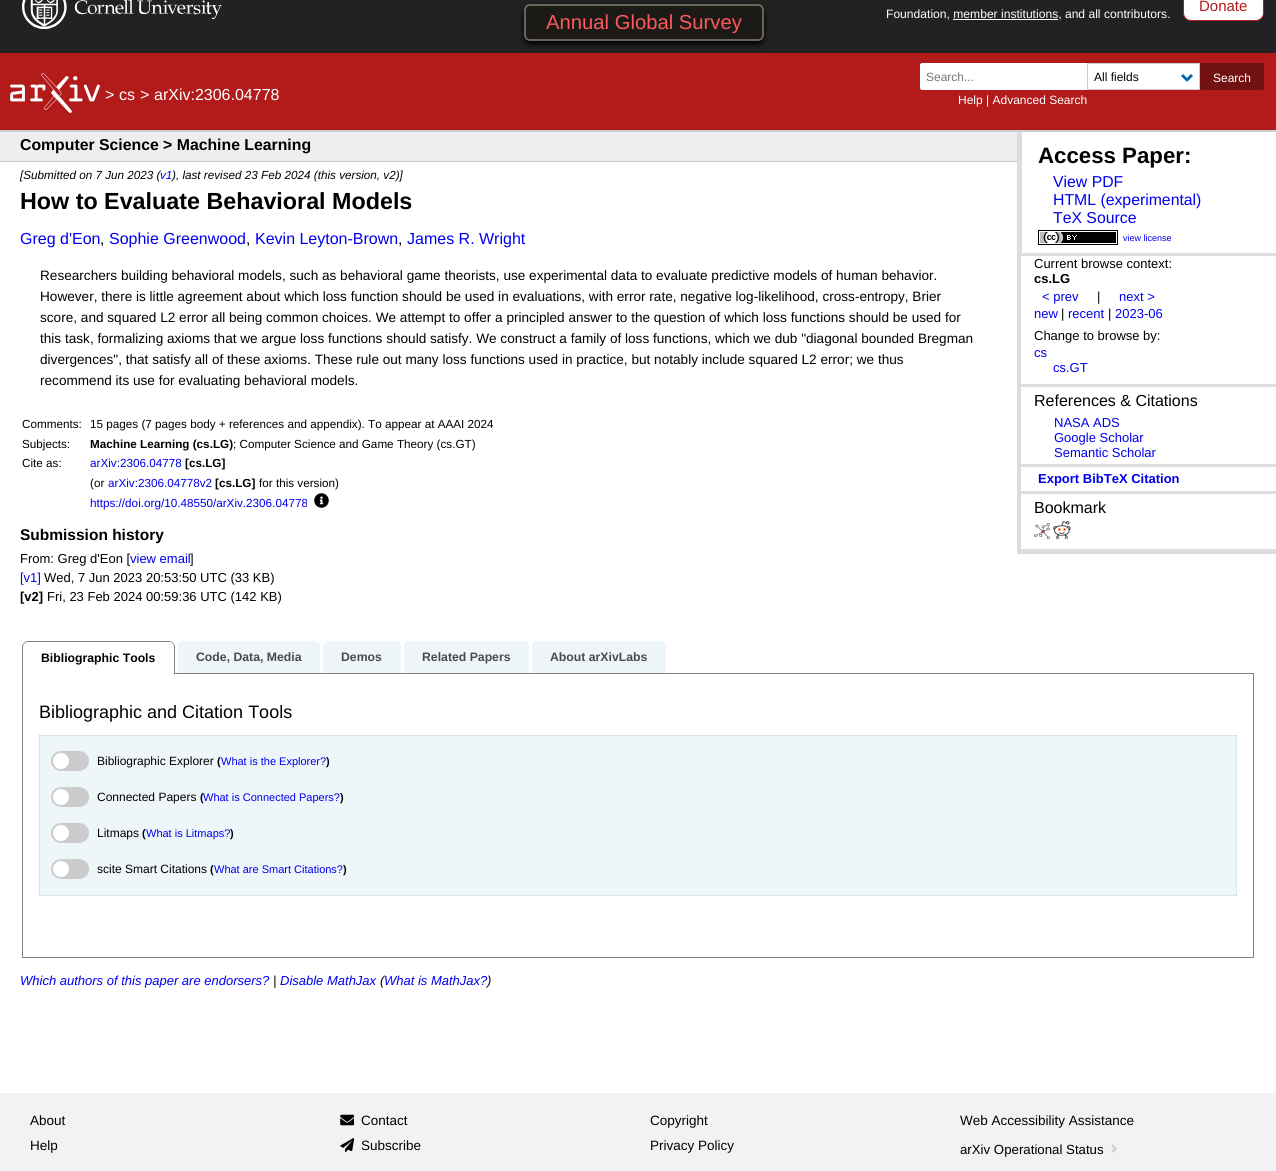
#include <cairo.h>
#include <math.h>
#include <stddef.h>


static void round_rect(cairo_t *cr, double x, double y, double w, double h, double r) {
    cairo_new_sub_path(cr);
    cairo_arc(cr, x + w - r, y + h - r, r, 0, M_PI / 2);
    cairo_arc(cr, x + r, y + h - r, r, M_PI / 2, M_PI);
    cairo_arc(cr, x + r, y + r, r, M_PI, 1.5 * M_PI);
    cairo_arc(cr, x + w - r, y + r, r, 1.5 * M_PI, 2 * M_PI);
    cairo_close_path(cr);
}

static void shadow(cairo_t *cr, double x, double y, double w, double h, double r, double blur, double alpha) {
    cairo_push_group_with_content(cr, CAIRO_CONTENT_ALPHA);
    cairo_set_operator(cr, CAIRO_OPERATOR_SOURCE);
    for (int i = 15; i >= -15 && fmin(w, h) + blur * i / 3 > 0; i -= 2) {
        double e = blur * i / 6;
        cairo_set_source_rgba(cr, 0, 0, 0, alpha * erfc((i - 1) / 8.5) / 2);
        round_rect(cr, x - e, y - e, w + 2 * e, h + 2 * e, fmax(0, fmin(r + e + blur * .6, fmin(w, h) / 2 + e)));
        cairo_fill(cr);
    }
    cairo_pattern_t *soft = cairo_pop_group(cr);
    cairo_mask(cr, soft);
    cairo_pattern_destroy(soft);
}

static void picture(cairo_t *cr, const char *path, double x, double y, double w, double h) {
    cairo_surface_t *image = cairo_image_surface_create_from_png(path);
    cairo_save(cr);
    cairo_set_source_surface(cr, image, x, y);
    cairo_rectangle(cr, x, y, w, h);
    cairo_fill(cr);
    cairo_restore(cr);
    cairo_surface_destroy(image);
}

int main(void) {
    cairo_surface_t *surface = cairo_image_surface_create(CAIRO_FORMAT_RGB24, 1276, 1171);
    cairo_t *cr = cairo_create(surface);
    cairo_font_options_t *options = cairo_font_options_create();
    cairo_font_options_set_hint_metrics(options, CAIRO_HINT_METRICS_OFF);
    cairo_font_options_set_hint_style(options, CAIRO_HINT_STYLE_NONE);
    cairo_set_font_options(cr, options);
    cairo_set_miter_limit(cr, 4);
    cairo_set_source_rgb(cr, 1, 1, 1);
    cairo_paint(cr);
    cairo_set_source_rgb(cr, 0.133, 0.133, 0.133);
    cairo_rectangle(cr, 0, 0, 1276, 53);
    cairo_fill(cr);
    picture(cr, "img1.png", 22, 0, 200, 29);
    cairo_set_source_rgb(cr, 1, 1, 1);
    round_rect(cr, 1183.5, -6.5, 80, 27, 7.5);
    cairo_fill_preserve(cr);
    cairo_set_source_rgb(cr, 0.702, 0.106, 0.106);
    cairo_set_line_width(cr, 1);
    cairo_stroke(cr);
    cairo_select_font_face(cr, "Liberation Sans", CAIRO_FONT_SLANT_NORMAL, CAIRO_FONT_WEIGHT_NORMAL);
    cairo_set_font_size(cr, 15);
    cairo_move_to(cr, 1199, 11);
    cairo_show_text(cr, "Donate");
    cairo_set_font_size(cr, 12.1);
    cairo_set_source_rgb(cr, 1, 1, 1);
    cairo_move_to(cr, 886, 18);
    cairo_show_text(cr, "Foundation, member institutions, and all contributors.");
    cairo_rectangle(cr, 953, 19, 105, 1);
    cairo_fill(cr);
    cairo_set_source_rgb(cr, 0, 0, 0);
    shadow(cr, 524, 7, 240, 37, 6, 3, 1);
    cairo_set_source_rgb(cr, 0.11, 0.102, 0.09);
    round_rect(cr, 525, 5, 238, 35, 5);
    cairo_fill_preserve(cr);
    cairo_set_source_rgb(cr, 0.42, 0.392, 0.349);
    cairo_set_line_width(cr, 2);
    cairo_stroke(cr);
    cairo_set_font_size(cr, 20.25);
    cairo_set_source_rgb(cr, 0.984, 0.349, 0.353);
    cairo_move_to(cr, 546, 29);
    cairo_show_text(cr, "Annual Global Survey");
    cairo_set_source_rgb(cr, 0.702, 0.106, 0.106);
    cairo_rectangle(cr, 0, 53, 1276, 77);
    cairo_fill(cr);
    cairo_set_source_rgb(cr, 0.8, 0.8, 0.8);
    cairo_rectangle(cr, 0, 130, 1276, 2);
    cairo_fill(cr);
    picture(cr, "img2.png", 10, 73, 90, 40);
    cairo_set_font_size(cr, 16);
    cairo_set_source_rgb(cr, 1, 1, 1);
    cairo_move_to(cr, 105, 100);
    cairo_show_text(cr, ">");
    cairo_move_to(cr, 119, 100);
    cairo_show_text(cr, "cs");
    cairo_move_to(cr, 140, 100);
    cairo_show_text(cr, ">");
    cairo_move_to(cr, 154, 100);
    cairo_show_text(cr, "arXiv:2306.04778");
    cairo_new_path(cr);
    cairo_move_to(cr, 922, 63);
    cairo_line_to(cr, 1099, 63);
    cairo_line_to(cr, 1099, 90);
    cairo_line_to(cr, 922, 90);
    cairo_curve_to(cr, 921, 90, 920, 89, 920, 88);
    cairo_line_to(cr, 920, 65);
    cairo_curve_to(cr, 920, 64, 921, 63, 922, 63);
    cairo_close_path(cr);
    cairo_fill(cr);
    cairo_set_font_size(cr, 12);
    cairo_set_source_rgb(cr, 0.459, 0.459, 0.459);
    cairo_move_to(cr, 926, 81);
    cairo_show_text(cr, "Search...");
    cairo_set_source_rgb(cr, 1, 1, 1);
    cairo_move_to(cr, 958, 104);
    cairo_show_text(cr, "Help | Advanced Search");
    cairo_rectangle(cr, 1099, 64, 100, 25);
    cairo_fill(cr);
    cairo_rectangle(cr, 1087.5, 63.5, 112, 26);
    cairo_set_source_rgb(cr, 0.8, 0.8, 0.8);
    cairo_set_line_width(cr, 1);
    cairo_stroke(cr);
    cairo_set_source_rgb(cr, 0, 0, 0);
    cairo_move_to(cr, 1094, 81);
    cairo_show_text(cr, "All fields");
    cairo_set_source_rgb(cr, 0, 0.408, 0.675);
    cairo_new_path(cr);
    cairo_move_to(cr, 1185.5, 79.5);
    cairo_line_to(cr, 1191, 74);
    cairo_line_to(cr, 1193, 76);
    cairo_line_to(cr, 1187.5, 81.5);
    cairo_close_path(cr);
    cairo_fill(cr);
    cairo_new_path(cr);
    cairo_move_to(cr, 1181, 76);
    cairo_line_to(cr, 1183, 74);
    cairo_line_to(cr, 1188.5, 79.5);
    cairo_line_to(cr, 1186.5, 81.5);
    cairo_close_path(cr);
    cairo_fill(cr);
    cairo_set_source_rgb(cr, 0.443, 0.067, 0.067);
    round_rect(cr, 1200, 63, 64, 27, 2);
    cairo_fill(cr);
    cairo_set_source_rgb(cr, 1, 1, 1);
    cairo_move_to(cr, 1213, 82);
    cairo_show_text(cr, "Search");
    cairo_set_source_rgb(cr, 0.933, 0.933, 0.933);
    cairo_rectangle(cr, 0, 132, 1017, 29);
    cairo_fill(cr);
    cairo_set_source_rgb(cr, 0.8, 0.8, 0.8);
    cairo_rectangle(cr, 0, 161, 1017, 1);
    cairo_fill(cr);
    cairo_select_font_face(cr, "Liberation Sans", CAIRO_FONT_SLANT_NORMAL, CAIRO_FONT_WEIGHT_BOLD);
    cairo_set_font_size(cr, 15.8);
    cairo_set_source_rgb(cr, 0, 0, 0);
    cairo_move_to(cr, 20, 150);
    cairo_show_text(cr, "Computer Science > Machine Learning");
    cairo_select_font_face(cr, "Liberation Sans", CAIRO_FONT_SLANT_ITALIC, CAIRO_FONT_WEIGHT_NORMAL);
    cairo_set_font_size(cr, 11.7);
    cairo_move_to(cr, 20, 179);
    cairo_show_text(cr, "[Submitted on 7 Jun 2023 (");
    cairo_set_source_rgb(cr, 0, 0, 0.933);
    cairo_move_to(cr, 160, 179);
    cairo_show_text(cr, "v1");
    cairo_set_source_rgb(cr, 0, 0, 0);
    cairo_move_to(cr, 172, 179);
    cairo_show_text(cr, "), last revised 23 Feb 2024 (this version, v2)]");
    cairo_select_font_face(cr, "Liberation Sans", CAIRO_FONT_SLANT_NORMAL, CAIRO_FONT_WEIGHT_BOLD);
    cairo_set_font_size(cr, 23.3);
    cairo_move_to(cr, 20, 209);
    cairo_show_text(cr, "How to Evaluate Behavioral Models");
    cairo_select_font_face(cr, "Liberation Sans", CAIRO_FONT_SLANT_NORMAL, CAIRO_FONT_WEIGHT_NORMAL);
    cairo_set_font_size(cr, 16);
    cairo_set_source_rgb(cr, 0, 0, 0.933);
    cairo_move_to(cr, 20, 244);
    cairo_show_text(cr, "Greg d'Eon");
    cairo_set_font_size(cr, 15.5);
    cairo_set_source_rgb(cr, 0, 0, 0);
    cairo_move_to(cr, 100, 244);
    cairo_show_text(cr, ",");
    cairo_set_font_size(cr, 16);
    cairo_set_source_rgb(cr, 0, 0, 0.933);
    cairo_move_to(cr, 109, 244);
    cairo_show_text(cr, "Sophie Greenwood");
    cairo_set_font_size(cr, 15.5);
    cairo_set_source_rgb(cr, 0, 0, 0);
    cairo_move_to(cr, 246, 244);
    cairo_show_text(cr, ",");
    cairo_set_font_size(cr, 16);
    cairo_set_source_rgb(cr, 0, 0, 0.933);
    cairo_move_to(cr, 255, 244);
    cairo_show_text(cr, "Kevin Leyton-Brown");
    cairo_set_font_size(cr, 15.5);
    cairo_set_source_rgb(cr, 0, 0, 0);
    cairo_move_to(cr, 398, 244);
    cairo_show_text(cr, ",");
    cairo_set_font_size(cr, 16);
    cairo_set_source_rgb(cr, 0, 0, 0.933);
    cairo_move_to(cr, 407, 244);
    cairo_show_text(cr, "James R. Wright");
    cairo_set_font_size(cr, 13.6);
    cairo_set_source_rgb(cr, 0, 0, 0);
    cairo_move_to(cr, 40, 280);
    cairo_show_text(cr, "Researchers building behavioral models, such as behavioral game theorists, use experimental data to evaluate predictive models of human behavior.");
    cairo_move_to(cr, 40, 301);
    cairo_show_text(cr, "However, there is little agreement about which loss function should be used in evaluations, with error rate, negative log-likelihood, cross-entropy, Brier");
    cairo_move_to(cr, 40, 322);
    cairo_show_text(cr, "score, and squared L2 error all being common choices. We attempt to offer a principled answer to the question of which loss functions should be used for");
    cairo_move_to(cr, 40, 343);
    cairo_show_text(cr, "this task, formalizing axioms that we argue loss functions should satisfy. We construct a family of loss functions, which we dub \"diagonal bounded Bregman");
    cairo_move_to(cr, 40, 364);
    cairo_show_text(cr, "divergences\", that satisfy all of these axioms. These rule out many loss functions used in practice, but notably include squared L2 error; we thus");
    cairo_move_to(cr, 40, 385);
    cairo_show_text(cr, "recommend its use for evaluating behavioral models.");
    cairo_set_font_size(cr, 11.7);
    cairo_move_to(cr, 22, 428);
    cairo_show_text(cr, "Comments:");
    cairo_move_to(cr, 90, 428);
    cairo_show_text(cr, "15 pages (7 pages body + references and appendix). To appear at AAAI 2024");
    cairo_move_to(cr, 22, 448);
    cairo_show_text(cr, "Subjects:");
    cairo_select_font_face(cr, "Liberation Sans", CAIRO_FONT_SLANT_NORMAL, CAIRO_FONT_WEIGHT_BOLD);
    cairo_move_to(cr, 90, 448);
    cairo_show_text(cr, "Machine Learning (cs.LG)");
    cairo_select_font_face(cr, "Liberation Sans", CAIRO_FONT_SLANT_NORMAL, CAIRO_FONT_WEIGHT_NORMAL);
    cairo_move_to(cr, 233, 448);
    cairo_show_text(cr, "; Computer Science and Game Theory (cs.GT)");
    cairo_move_to(cr, 22, 467);
    cairo_show_text(cr, "Cite as:");
    cairo_set_source_rgb(cr, 0, 0, 0.933);
    cairo_move_to(cr, 90, 467);
    cairo_show_text(cr, "arXiv:2306.04778");
    cairo_select_font_face(cr, "Liberation Sans", CAIRO_FONT_SLANT_NORMAL, CAIRO_FONT_WEIGHT_BOLD);
    cairo_set_source_rgb(cr, 0, 0, 0);
    cairo_move_to(cr, 185, 467);
    cairo_show_text(cr, "[cs.LG]");
    cairo_select_font_face(cr, "Liberation Sans", CAIRO_FONT_SLANT_NORMAL, CAIRO_FONT_WEIGHT_NORMAL);
    cairo_move_to(cr, 90, 487);
    cairo_show_text(cr, "(or");
    cairo_set_source_rgb(cr, 0, 0, 0.933);
    cairo_move_to(cr, 108, 487);
    cairo_show_text(cr, "arXiv:2306.04778v2");
    cairo_select_font_face(cr, "Liberation Sans", CAIRO_FONT_SLANT_NORMAL, CAIRO_FONT_WEIGHT_BOLD);
    cairo_set_source_rgb(cr, 0, 0, 0);
    cairo_move_to(cr, 215, 487);
    cairo_show_text(cr, "[cs.LG]");
    cairo_select_font_face(cr, "Liberation Sans", CAIRO_FONT_SLANT_NORMAL, CAIRO_FONT_WEIGHT_NORMAL);
    cairo_move_to(cr, 259, 487);
    cairo_show_text(cr, "for this version)");
    cairo_set_source_rgb(cr, 0, 0, 0.933);
    cairo_move_to(cr, 90, 507);
    cairo_show_text(cr, "https://doi.org/10.48550/arXiv.2306.04778");
    picture(cr, "img3.png", 314, 493, 15, 15);
    cairo_select_font_face(cr, "Liberation Sans", CAIRO_FONT_SLANT_NORMAL, CAIRO_FONT_WEIGHT_BOLD);
    cairo_set_font_size(cr, 15.5);
    cairo_set_source_rgb(cr, 0, 0, 0);
    cairo_move_to(cr, 20, 540);
    cairo_show_text(cr, "Submission history");
    cairo_select_font_face(cr, "Liberation Sans", CAIRO_FONT_SLANT_NORMAL, CAIRO_FONT_WEIGHT_NORMAL);
    cairo_set_font_size(cr, 13);
    cairo_move_to(cr, 20, 563);
    cairo_show_text(cr, "From: Greg d'Eon [");
    cairo_set_source_rgb(cr, 0, 0, 0.933);
    cairo_move_to(cr, 130, 563);
    cairo_show_text(cr, "view email");
    cairo_set_source_rgb(cr, 0, 0, 0);
    cairo_move_to(cr, 190, 563);
    cairo_show_text(cr, "]");
    cairo_set_source_rgb(cr, 0, 0, 0.933);
    cairo_move_to(cr, 20, 582);
    cairo_show_text(cr, "[v1]");
    cairo_set_source_rgb(cr, 0, 0, 0);
    cairo_move_to(cr, 44, 582);
    cairo_show_text(cr, "Wed, 7 Jun 2023 20:53:50 UTC (33 KB)");
    cairo_select_font_face(cr, "Liberation Sans", CAIRO_FONT_SLANT_NORMAL, CAIRO_FONT_WEIGHT_BOLD);
    cairo_move_to(cr, 20, 601);
    cairo_show_text(cr, "[v2]");
    cairo_select_font_face(cr, "Liberation Sans", CAIRO_FONT_SLANT_NORMAL, CAIRO_FONT_WEIGHT_NORMAL);
    cairo_move_to(cr, 47, 601);
    cairo_show_text(cr, "Fri, 23 Feb 2024 00:59:36 UTC (142 KB)");
    cairo_set_source_rgb(cr, 0.867, 0.867, 0.867);
    cairo_rectangle(cr, 1017, 549, 259, 5);
    cairo_fill(cr);
    cairo_rectangle(cr, 1017, 253, 259, 3);
    cairo_fill(cr);
    cairo_rectangle(cr, 1017, 132, 5, 124);
    cairo_fill(cr);
    cairo_select_font_face(cr, "Liberation Sans", CAIRO_FONT_SLANT_NORMAL, CAIRO_FONT_WEIGHT_BOLD);
    cairo_set_font_size(cr, 22.25);
    cairo_set_source_rgb(cr, 0, 0, 0);
    cairo_move_to(cr, 1038, 163);
    cairo_show_text(cr, "Access Paper:");
    cairo_select_font_face(cr, "Liberation Sans", CAIRO_FONT_SLANT_NORMAL, CAIRO_FONT_WEIGHT_NORMAL);
    cairo_set_font_size(cr, 15.8);
    cairo_set_source_rgb(cr, 0, 0, 0.933);
    cairo_move_to(cr, 1053, 187);
    cairo_show_text(cr, "View PDF");
    cairo_move_to(cr, 1053, 205);
    cairo_show_text(cr, "HTML (experimental)");
    cairo_move_to(cr, 1053, 223);
    cairo_show_text(cr, "TeX Source");
    picture(cr, "img4.png", 1038, 230, 80, 15);
    cairo_set_font_size(cr, 9);
    cairo_move_to(cr, 1123, 241);
    cairo_show_text(cr, "view license");
    cairo_set_source_rgb(cr, 0.867, 0.867, 0.867);
    cairo_rectangle(cr, 1017, 384, 259, 3);
    cairo_fill(cr);
    cairo_rectangle(cr, 1017, 256, 4, 131);
    cairo_fill(cr);
    cairo_set_font_size(cr, 13);
    cairo_set_source_rgb(cr, 0, 0, 0);
    cairo_move_to(cr, 1034, 268);
    cairo_show_text(cr, "Current browse context:");
    cairo_select_font_face(cr, "Liberation Sans", CAIRO_FONT_SLANT_NORMAL, CAIRO_FONT_WEIGHT_BOLD);
    cairo_move_to(cr, 1034, 283);
    cairo_show_text(cr, "cs.LG");
    cairo_select_font_face(cr, "Liberation Sans", CAIRO_FONT_SLANT_NORMAL, CAIRO_FONT_WEIGHT_NORMAL);
    cairo_set_source_rgb(cr, 0, 0, 0.933);
    cairo_move_to(cr, 1042, 301);
    cairo_show_text(cr, "< prev");
    cairo_set_source_rgb(cr, 0, 0, 0);
    cairo_move_to(cr, 1097, 301);
    cairo_show_text(cr, "|");
    cairo_set_source_rgb(cr, 0, 0, 0.933);
    cairo_move_to(cr, 1119, 301);
    cairo_show_text(cr, "next >");
    cairo_move_to(cr, 1034, 318);
    cairo_show_text(cr, "new");
    cairo_set_source_rgb(cr, 0, 0, 0);
    cairo_move_to(cr, 1061, 318);
    cairo_show_text(cr, "|");
    cairo_set_source_rgb(cr, 0, 0, 0.933);
    cairo_move_to(cr, 1068, 318);
    cairo_show_text(cr, "recent");
    cairo_set_source_rgb(cr, 0, 0, 0);
    cairo_move_to(cr, 1108, 318);
    cairo_show_text(cr, "|");
    cairo_set_source_rgb(cr, 0, 0, 0.933);
    cairo_move_to(cr, 1115, 318);
    cairo_show_text(cr, "2023-06");
    cairo_set_source_rgb(cr, 0, 0, 0);
    cairo_move_to(cr, 1034, 340);
    cairo_show_text(cr, "Change to browse by:");
    cairo_set_source_rgb(cr, 0, 0, 0.933);
    cairo_move_to(cr, 1034, 357);
    cairo_show_text(cr, "cs");
    cairo_move_to(cr, 1053, 372);
    cairo_show_text(cr, "cs.GT");
    cairo_set_source_rgb(cr, 0.867, 0.867, 0.867);
    cairo_rectangle(cr, 1017, 464, 259, 3);
    cairo_fill(cr);
    cairo_rectangle(cr, 1017, 387, 4, 80);
    cairo_fill(cr);
    cairo_set_font_size(cr, 16);
    cairo_set_source_rgb(cr, 0, 0, 0);
    cairo_move_to(cr, 1034, 406);
    cairo_show_text(cr, "References & Citations");
    cairo_set_font_size(cr, 13);
    cairo_set_source_rgb(cr, 0, 0, 0.933);
    cairo_move_to(cr, 1054, 427);
    cairo_show_text(cr, "NASA ADS");
    cairo_move_to(cr, 1054, 442);
    cairo_show_text(cr, "Google Scholar");
    cairo_move_to(cr, 1054, 457);
    cairo_show_text(cr, "Semantic Scholar");
    cairo_set_source_rgb(cr, 0.867, 0.867, 0.867);
    cairo_rectangle(cr, 1017, 491, 259, 3);
    cairo_fill(cr);
    cairo_rectangle(cr, 1017, 467, 4, 82);
    cairo_fill(cr);
    cairo_select_font_face(cr, "Liberation Sans", CAIRO_FONT_SLANT_NORMAL, CAIRO_FONT_WEIGHT_BOLD);
    cairo_set_source_rgb(cr, 0, 0, 0.933);
    cairo_move_to(cr, 1038, 483);
    cairo_show_text(cr, "Export BibTeX Citation");
    cairo_select_font_face(cr, "Liberation Sans", CAIRO_FONT_SLANT_NORMAL, CAIRO_FONT_WEIGHT_NORMAL);
    cairo_set_font_size(cr, 16);
    cairo_set_source_rgb(cr, 0, 0, 0);
    cairo_move_to(cr, 1034, 513);
    cairo_show_text(cr, "Bookmark");
    picture(cr, "img5.png", 1034, 523, 16, 16);
    picture(cr, "img6.png", 1053, 521, 18, 18);
    cairo_set_source_rgb(cr, 0.933, 0.961, 0.976);
    cairo_new_path(cr);
    cairo_move_to(cr, 184, 641);
    cairo_line_to(cr, 314, 641);
    cairo_curve_to(cr, 317.5, 641, 320, 643.5, 320, 647);
    cairo_line_to(cr, 320, 674);
    cairo_line_to(cr, 178, 674);
    cairo_line_to(cr, 178, 647);
    cairo_curve_to(cr, 178, 643.5, 180.5, 641, 184, 641);
    cairo_close_path(cr);
    cairo_fill(cr);
    cairo_new_path(cr);
    cairo_move_to(cr, 329, 641);
    cairo_line_to(cr, 395, 641);
    cairo_curve_to(cr, 398.5, 641, 401, 643.5, 401, 647);
    cairo_line_to(cr, 401, 674);
    cairo_line_to(cr, 323, 674);
    cairo_line_to(cr, 323, 647);
    cairo_curve_to(cr, 323, 643.5, 325.5, 641, 329, 641);
    cairo_close_path(cr);
    cairo_fill(cr);
    cairo_new_path(cr);
    cairo_move_to(cr, 410, 641);
    cairo_line_to(cr, 523, 641);
    cairo_curve_to(cr, 526.5, 641, 529, 643.5, 529, 647);
    cairo_line_to(cr, 529, 674);
    cairo_line_to(cr, 404, 674);
    cairo_line_to(cr, 404, 647);
    cairo_curve_to(cr, 404, 643.5, 406.5, 641, 410, 641);
    cairo_close_path(cr);
    cairo_fill(cr);
    cairo_new_path(cr);
    cairo_move_to(cr, 538, 641);
    cairo_line_to(cr, 660, 641);
    cairo_curve_to(cr, 663.5, 641, 666, 643.5, 666, 647);
    cairo_line_to(cr, 666, 674);
    cairo_line_to(cr, 532, 674);
    cairo_line_to(cr, 532, 647);
    cairo_curve_to(cr, 532, 643.5, 534.5, 641, 538, 641);
    cairo_close_path(cr);
    cairo_fill(cr);
    cairo_rectangle(cr, 22.5, 673.5, 1231, 284);
    cairo_set_source_rgb(cr, 0.51, 0.51, 0.51);
    cairo_stroke(cr);
    cairo_set_source_rgb(cr, 1, 1, 1);
    cairo_new_path(cr);
    cairo_move_to(cr, 28, 641);
    cairo_line_to(cr, 169, 641);
    cairo_curve_to(cr, 172.5, 641, 175, 643.5, 175, 647);
    cairo_line_to(cr, 175, 674);
    cairo_line_to(cr, 22, 674);
    cairo_line_to(cr, 22, 647);
    cairo_curve_to(cr, 22, 643.5, 24.5, 641, 28, 641);
    cairo_close_path(cr);
    cairo_fill(cr);
    cairo_set_source_rgb(cr, 0.51, 0.51, 0.51);
    cairo_set_fill_rule(cr, CAIRO_FILL_RULE_EVEN_ODD);
    cairo_new_path(cr);
    cairo_move_to(cr, 28, 641);
    cairo_line_to(cr, 169, 641);
    cairo_curve_to(cr, 172, 641, 175, 644, 175, 647);
    cairo_line_to(cr, 175, 674);
    cairo_line_to(cr, 22, 674);
    cairo_line_to(cr, 22, 647);
    cairo_curve_to(cr, 22, 644, 25, 641, 28, 641);
    cairo_close_path(cr);
    cairo_move_to(cr, 28, 642);
    cairo_line_to(cr, 169, 642);
    cairo_curve_to(cr, 172, 642, 174, 644, 174, 647);
    cairo_line_to(cr, 174, 674);
    cairo_line_to(cr, 23, 674);
    cairo_line_to(cr, 23, 647);
    cairo_curve_to(cr, 23, 644, 25, 642, 28, 642);
    cairo_close_path(cr);
    cairo_fill(cr);
    cairo_select_font_face(cr, "Liberation Sans", CAIRO_FONT_SLANT_NORMAL, CAIRO_FONT_WEIGHT_BOLD);
    cairo_set_font_size(cr, 12.25);
    cairo_set_source_rgb(cr, 0, 0, 0);
    cairo_move_to(cr, 41, 662);
    cairo_show_text(cr, "Bibliographic Tools");
    cairo_set_source_rgb(cr, 0.29, 0.29, 0.29);
    cairo_move_to(cr, 196, 661);
    cairo_show_text(cr, "Code, Data, Media");
    cairo_move_to(cr, 341, 661);
    cairo_show_text(cr, "Demos");
    cairo_move_to(cr, 422, 661);
    cairo_show_text(cr, "Related Papers");
    cairo_move_to(cr, 550, 661);
    cairo_show_text(cr, "About arXivLabs");
    cairo_select_font_face(cr, "Liberation Sans", CAIRO_FONT_SLANT_NORMAL, CAIRO_FONT_WEIGHT_NORMAL);
    cairo_set_font_size(cr, 18);
    cairo_set_source_rgb(cr, 0, 0, 0);
    cairo_move_to(cr, 39, 718);
    cairo_show_text(cr, "Bibliographic and Citation Tools");
    cairo_set_source_rgb(cr, 0.933, 0.961, 0.976);
    cairo_rectangle(cr, 39, 735, 1198, 161);
    cairo_fill(cr);
    cairo_new_path(cr);
    cairo_move_to(cr, 39, 735.5);
    cairo_line_to(cr, 1237, 735.5);
    cairo_set_source_rgb(cr, 0.78, 0.827, 0.859);
    cairo_set_dash(cr, (double[]){1, 1}, 2, 0);
    cairo_stroke(cr);
    cairo_new_path(cr);
    cairo_move_to(cr, 1236.5, 735);
    cairo_line_to(cr, 1236.5, 896);
    cairo_stroke(cr);
    cairo_new_path(cr);
    cairo_move_to(cr, 39, 895.5);
    cairo_line_to(cr, 1237, 895.5);
    cairo_stroke(cr);
    cairo_new_path(cr);
    cairo_move_to(cr, 39.5, 735);
    cairo_line_to(cr, 39.5, 896);
    cairo_stroke(cr);
    cairo_set_source_rgb(cr, 0.8, 0.8, 0.8);
    round_rect(cr, 51, 751, 38, 20, 10);
    cairo_fill(cr);
    cairo_set_source_rgb(cr, 1, 1, 1);
    cairo_arc(cr, 61, 761, 8, 0, 2 * M_PI);
    cairo_fill(cr);
    cairo_set_font_size(cr, 12);
    cairo_set_source_rgb(cr, 0, 0, 0);
    cairo_move_to(cr, 97, 765);
    cairo_show_text(cr, "Bibliographic Explorer");
    cairo_select_font_face(cr, "Liberation Sans", CAIRO_FONT_SLANT_NORMAL, CAIRO_FONT_WEIGHT_BOLD);
    cairo_set_font_size(cr, 11);
    cairo_move_to(cr, 217, 765);
    cairo_show_text(cr, "(");
    cairo_select_font_face(cr, "Liberation Sans", CAIRO_FONT_SLANT_NORMAL, CAIRO_FONT_WEIGHT_NORMAL);
    cairo_set_source_rgb(cr, 0, 0, 0.933);
    cairo_move_to(cr, 221, 765);
    cairo_show_text(cr, "What is the Explorer?");
    cairo_select_font_face(cr, "Liberation Sans", CAIRO_FONT_SLANT_NORMAL, CAIRO_FONT_WEIGHT_BOLD);
    cairo_set_source_rgb(cr, 0, 0, 0);
    cairo_move_to(cr, 326, 765);
    cairo_show_text(cr, ")");
    cairo_set_source_rgb(cr, 0.8, 0.8, 0.8);
    round_rect(cr, 51, 787, 38, 20, 10);
    cairo_fill(cr);
    cairo_set_source_rgb(cr, 1, 1, 1);
    cairo_arc(cr, 61, 797, 8, 0, 2 * M_PI);
    cairo_fill(cr);
    cairo_select_font_face(cr, "Liberation Sans", CAIRO_FONT_SLANT_NORMAL, CAIRO_FONT_WEIGHT_NORMAL);
    cairo_set_font_size(cr, 12);
    cairo_set_source_rgb(cr, 0, 0, 0);
    cairo_move_to(cr, 97, 801);
    cairo_show_text(cr, "Connected Papers");
    cairo_select_font_face(cr, "Liberation Sans", CAIRO_FONT_SLANT_NORMAL, CAIRO_FONT_WEIGHT_BOLD);
    cairo_set_font_size(cr, 11);
    cairo_move_to(cr, 200, 801);
    cairo_show_text(cr, "(");
    cairo_select_font_face(cr, "Liberation Sans", CAIRO_FONT_SLANT_NORMAL, CAIRO_FONT_WEIGHT_NORMAL);
    cairo_set_source_rgb(cr, 0, 0, 0.933);
    cairo_move_to(cr, 203, 801);
    cairo_show_text(cr, "What is Connected Papers?");
    cairo_select_font_face(cr, "Liberation Sans", CAIRO_FONT_SLANT_NORMAL, CAIRO_FONT_WEIGHT_BOLD);
    cairo_set_source_rgb(cr, 0, 0, 0);
    cairo_move_to(cr, 340, 801);
    cairo_show_text(cr, ")");
    cairo_set_source_rgb(cr, 0.8, 0.8, 0.8);
    round_rect(cr, 51, 823, 38, 20, 10);
    cairo_fill(cr);
    cairo_set_source_rgb(cr, 1, 1, 1);
    cairo_arc(cr, 61, 833, 8, 0, 2 * M_PI);
    cairo_fill(cr);
    cairo_select_font_face(cr, "Liberation Sans", CAIRO_FONT_SLANT_NORMAL, CAIRO_FONT_WEIGHT_NORMAL);
    cairo_set_font_size(cr, 12);
    cairo_set_source_rgb(cr, 0, 0, 0);
    cairo_move_to(cr, 97, 837);
    cairo_show_text(cr, "Litmaps");
    cairo_select_font_face(cr, "Liberation Sans", CAIRO_FONT_SLANT_NORMAL, CAIRO_FONT_WEIGHT_BOLD);
    cairo_set_font_size(cr, 11);
    cairo_move_to(cr, 142, 837);
    cairo_show_text(cr, "(");
    cairo_select_font_face(cr, "Liberation Sans", CAIRO_FONT_SLANT_NORMAL, CAIRO_FONT_WEIGHT_NORMAL);
    cairo_set_source_rgb(cr, 0, 0, 0.933);
    cairo_move_to(cr, 146, 837);
    cairo_show_text(cr, "What is Litmaps?");
    cairo_select_font_face(cr, "Liberation Sans", CAIRO_FONT_SLANT_NORMAL, CAIRO_FONT_WEIGHT_BOLD);
    cairo_set_source_rgb(cr, 0, 0, 0);
    cairo_move_to(cr, 230, 837);
    cairo_show_text(cr, ")");
    cairo_set_source_rgb(cr, 0.8, 0.8, 0.8);
    round_rect(cr, 51, 859, 38, 20, 10);
    cairo_fill(cr);
    cairo_set_source_rgb(cr, 1, 1, 1);
    cairo_arc(cr, 61, 869, 8, 0, 2 * M_PI);
    cairo_fill(cr);
    cairo_select_font_face(cr, "Liberation Sans", CAIRO_FONT_SLANT_NORMAL, CAIRO_FONT_WEIGHT_NORMAL);
    cairo_set_font_size(cr, 12);
    cairo_set_source_rgb(cr, 0, 0, 0);
    cairo_move_to(cr, 97, 873);
    cairo_show_text(cr, "scite Smart Citations");
    cairo_select_font_face(cr, "Liberation Sans", CAIRO_FONT_SLANT_NORMAL, CAIRO_FONT_WEIGHT_BOLD);
    cairo_set_font_size(cr, 11);
    cairo_move_to(cr, 210, 873);
    cairo_show_text(cr, "(");
    cairo_select_font_face(cr, "Liberation Sans", CAIRO_FONT_SLANT_NORMAL, CAIRO_FONT_WEIGHT_NORMAL);
    cairo_set_source_rgb(cr, 0, 0, 0.933);
    cairo_move_to(cr, 214, 873);
    cairo_show_text(cr, "What are Smart Citations?");
    cairo_select_font_face(cr, "Liberation Sans", CAIRO_FONT_SLANT_NORMAL, CAIRO_FONT_WEIGHT_BOLD);
    cairo_set_source_rgb(cr, 0, 0, 0);
    cairo_move_to(cr, 343, 873);
    cairo_show_text(cr, ")");
    cairo_select_font_face(cr, "Liberation Sans", CAIRO_FONT_SLANT_ITALIC, CAIRO_FONT_WEIGHT_NORMAL);
    cairo_set_font_size(cr, 13);
    cairo_set_source_rgb(cr, 0, 0, 0.933);
    cairo_move_to(cr, 20, 985);
    cairo_show_text(cr, "Which authors of this paper are endorsers?");
    cairo_set_source_rgb(cr, 0, 0, 0);
    cairo_move_to(cr, 273, 985);
    cairo_show_text(cr, "|");
    cairo_set_source_rgb(cr, 0, 0, 0.933);
    cairo_move_to(cr, 280, 985);
    cairo_show_text(cr, "Disable MathJax");
    cairo_set_source_rgb(cr, 0, 0, 0);
    cairo_move_to(cr, 380, 985);
    cairo_show_text(cr, "(");
    cairo_set_source_rgb(cr, 0, 0, 0.933);
    cairo_move_to(cr, 384, 985);
    cairo_show_text(cr, "What is MathJax?");
    cairo_set_source_rgb(cr, 0, 0, 0);
    cairo_move_to(cr, 487, 985);
    cairo_show_text(cr, ")");
    cairo_set_source_rgb(cr, 0.949, 0.949, 0.949);
    cairo_rectangle(cr, 0, 1093, 1276, 78);
    cairo_fill(cr);
    cairo_select_font_face(cr, "Liberation Sans", CAIRO_FONT_SLANT_NORMAL, CAIRO_FONT_WEIGHT_NORMAL);
    cairo_set_font_size(cr, 13.5);
    cairo_set_source_rgb(cr, 0, 0, 0);
    cairo_move_to(cr, 30, 1125);
    cairo_show_text(cr, "About");
    cairo_move_to(cr, 30, 1150);
    cairo_show_text(cr, "Help");
    picture(cr, "img7.png", 340, 1114, 14, 12);
    cairo_move_to(cr, 361, 1125);
    cairo_show_text(cr, "Contact");
    picture(cr, "img8.png", 340, 1138, 14, 14);
    cairo_move_to(cr, 361, 1150);
    cairo_show_text(cr, "Subscribe");
    cairo_move_to(cr, 650, 1125);
    cairo_show_text(cr, "Copyright");
    cairo_move_to(cr, 650, 1150);
    cairo_show_text(cr, "Privacy Policy");
    cairo_move_to(cr, 960, 1125);
    cairo_show_text(cr, "Web Accessibility Assistance");
    cairo_set_font_size(cr, 13.25);
    cairo_move_to(cr, 960, 1154);
    cairo_show_text(cr, "arXiv Operational Status");
    picture(cr, "img9.png", 1111, 1144, 6, 9);
    cairo_surface_write_to_png(surface, "page.png");
    cairo_font_options_destroy(options);
    cairo_destroy(cr);
    cairo_surface_destroy(surface);
    return 0;
}
